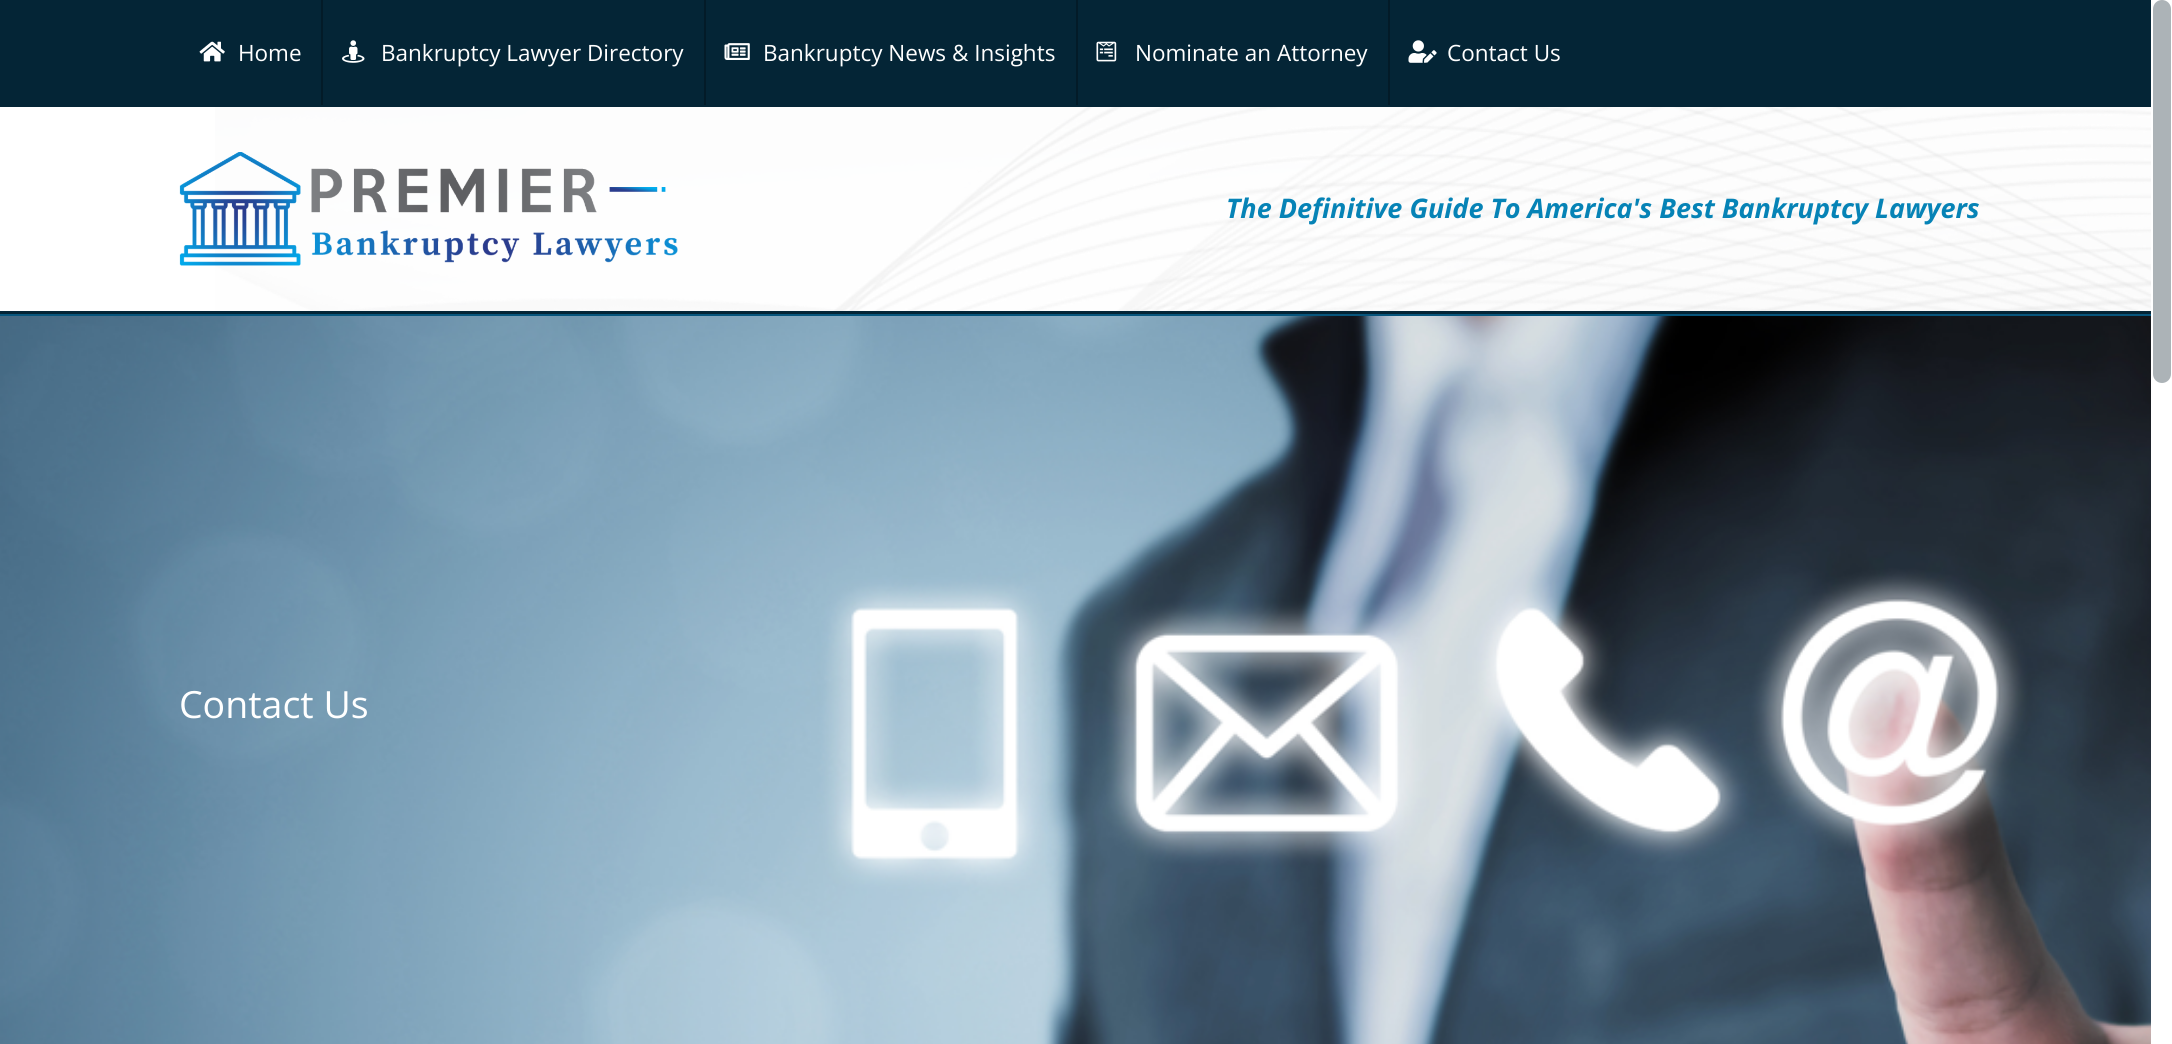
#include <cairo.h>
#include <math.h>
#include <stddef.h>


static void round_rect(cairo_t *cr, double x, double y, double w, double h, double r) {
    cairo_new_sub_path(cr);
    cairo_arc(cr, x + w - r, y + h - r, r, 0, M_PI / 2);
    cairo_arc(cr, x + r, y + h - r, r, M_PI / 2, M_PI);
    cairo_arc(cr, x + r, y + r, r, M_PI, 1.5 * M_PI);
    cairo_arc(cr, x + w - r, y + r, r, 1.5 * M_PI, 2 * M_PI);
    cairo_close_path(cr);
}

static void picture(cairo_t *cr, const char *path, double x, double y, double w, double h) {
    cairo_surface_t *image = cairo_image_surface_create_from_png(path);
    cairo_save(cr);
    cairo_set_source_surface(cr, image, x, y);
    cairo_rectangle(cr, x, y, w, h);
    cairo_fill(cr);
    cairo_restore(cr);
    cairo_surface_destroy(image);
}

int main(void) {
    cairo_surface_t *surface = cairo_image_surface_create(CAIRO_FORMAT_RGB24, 2172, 1044);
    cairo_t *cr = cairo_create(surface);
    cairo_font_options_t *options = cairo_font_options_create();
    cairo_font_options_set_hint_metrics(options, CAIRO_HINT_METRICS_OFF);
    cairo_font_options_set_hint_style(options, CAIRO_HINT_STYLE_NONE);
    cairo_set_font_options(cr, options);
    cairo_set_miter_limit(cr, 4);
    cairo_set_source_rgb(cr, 1, 1, 1);
    cairo_paint(cr);
    cairo_set_source_rgb(cr, 0.016, 0.145, 0.212);
    cairo_rectangle(cr, 0, 0, 2151, 107);
    cairo_fill(cr);
    picture(cr, "img1.png", 199, 41, 26, 21);
    cairo_select_font_face(cr, "Open Sans", CAIRO_FONT_SLANT_NORMAL, CAIRO_FONT_WEIGHT_NORMAL);
    cairo_set_font_size(cr, 22.5);
    cairo_set_source_rgb(cr, 1, 1, 1);
    cairo_move_to(cr, 238, 61);
    cairo_show_text(cr, "Home");
    cairo_set_source_rgb(cr, 0.012, 0.106, 0.157);
    cairo_rectangle(cr, 321, 0, 2, 105);
    cairo_fill(cr);
    picture(cr, "img2.png", 342, 40, 23, 23);
    cairo_set_source_rgb(cr, 1, 1, 1);
    cairo_move_to(cr, 381, 61);
    cairo_show_text(cr, "Bankruptcy Lawyer Directory");
    cairo_set_source_rgb(cr, 0.012, 0.106, 0.157);
    cairo_rectangle(cr, 704, 0, 2, 105);
    cairo_fill(cr);
    picture(cr, "img3.png", 724, 43, 26, 17);
    cairo_set_source_rgb(cr, 1, 1, 1);
    cairo_move_to(cr, 763, 61);
    cairo_show_text(cr, "Bankruptcy News & Insights");
    cairo_set_source_rgb(cr, 0.012, 0.106, 0.157);
    cairo_rectangle(cr, 1076, 0, 2, 105);
    cairo_fill(cr);
    picture(cr, "img4.png", 1096, 41, 21, 21);
    cairo_set_source_rgb(cr, 1, 1, 1);
    cairo_move_to(cr, 1135, 61);
    cairo_show_text(cr, "Nominate an Attorney");
    cairo_set_source_rgb(cr, 0.012, 0.106, 0.157);
    cairo_rectangle(cr, 1388, 0, 2, 105);
    cairo_fill(cr);
    picture(cr, "img5.png", 1408, 40, 29, 23);
    cairo_set_source_rgb(cr, 1, 1, 1);
    cairo_move_to(cr, 1447, 61);
    cairo_show_text(cr, "Contact Us");
    picture(cr, "img6.png", 215, 107, 1936, 204);
    picture(cr, "img7.png", 179, 152, 499, 114);
    cairo_select_font_face(cr, "Open Sans", CAIRO_FONT_SLANT_ITALIC, CAIRO_FONT_WEIGHT_BOLD);
    cairo_set_font_size(cr, 27);
    cairo_set_source_rgb(cr, 0.024, 0.514, 0.714);
    cairo_move_to(cr, 1226, 218);
    cairo_show_text(cr, "The Definitive Guide To America's Best Bankruptcy Lawyers");
    cairo_set_source_rgb(cr, 0.016, 0.145, 0.212);
    cairo_rectangle(cr, 0, 311, 2159, 3);
    cairo_fill(cr);
    picture(cr, "img8.png", 0, 316, 2151, 728);
    cairo_set_source_rgb(cr, 0.031, 0.333, 0.486);
    cairo_rectangle(cr, 0, 314, 2159, 2);
    cairo_fill(cr);
    cairo_select_font_face(cr, "Open Sans", CAIRO_FONT_SLANT_NORMAL, CAIRO_FONT_WEIGHT_NORMAL);
    cairo_set_font_size(cr, 37.5);
    cairo_set_source_rgb(cr, 1, 1, 1);
    cairo_move_to(cr, 179, 718);
    cairo_show_text(cr, "Contact Us");
    cairo_rectangle(cr, 2151, 311, 8, 5);
    cairo_fill(cr);
    cairo_set_source_rgb(cr, 0.675, 0.702, 0.718);
    round_rect(cr, 2153, 0, 18, 383, 9);
    cairo_fill(cr);
    cairo_surface_write_to_png(surface, "page.png");
    cairo_font_options_destroy(options);
    cairo_destroy(cr);
    cairo_surface_destroy(surface);
    return 0;
}
